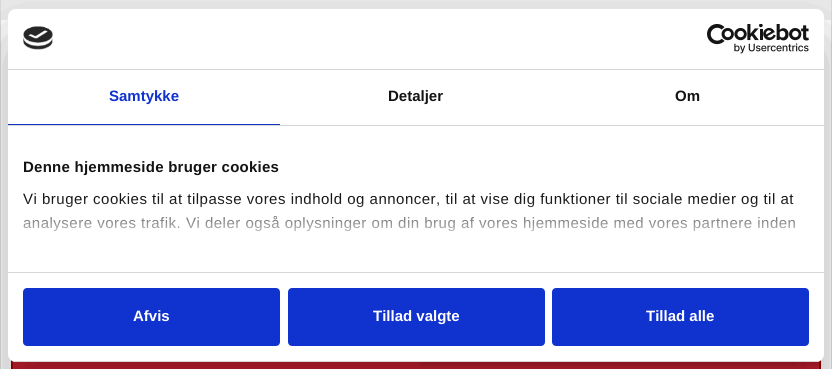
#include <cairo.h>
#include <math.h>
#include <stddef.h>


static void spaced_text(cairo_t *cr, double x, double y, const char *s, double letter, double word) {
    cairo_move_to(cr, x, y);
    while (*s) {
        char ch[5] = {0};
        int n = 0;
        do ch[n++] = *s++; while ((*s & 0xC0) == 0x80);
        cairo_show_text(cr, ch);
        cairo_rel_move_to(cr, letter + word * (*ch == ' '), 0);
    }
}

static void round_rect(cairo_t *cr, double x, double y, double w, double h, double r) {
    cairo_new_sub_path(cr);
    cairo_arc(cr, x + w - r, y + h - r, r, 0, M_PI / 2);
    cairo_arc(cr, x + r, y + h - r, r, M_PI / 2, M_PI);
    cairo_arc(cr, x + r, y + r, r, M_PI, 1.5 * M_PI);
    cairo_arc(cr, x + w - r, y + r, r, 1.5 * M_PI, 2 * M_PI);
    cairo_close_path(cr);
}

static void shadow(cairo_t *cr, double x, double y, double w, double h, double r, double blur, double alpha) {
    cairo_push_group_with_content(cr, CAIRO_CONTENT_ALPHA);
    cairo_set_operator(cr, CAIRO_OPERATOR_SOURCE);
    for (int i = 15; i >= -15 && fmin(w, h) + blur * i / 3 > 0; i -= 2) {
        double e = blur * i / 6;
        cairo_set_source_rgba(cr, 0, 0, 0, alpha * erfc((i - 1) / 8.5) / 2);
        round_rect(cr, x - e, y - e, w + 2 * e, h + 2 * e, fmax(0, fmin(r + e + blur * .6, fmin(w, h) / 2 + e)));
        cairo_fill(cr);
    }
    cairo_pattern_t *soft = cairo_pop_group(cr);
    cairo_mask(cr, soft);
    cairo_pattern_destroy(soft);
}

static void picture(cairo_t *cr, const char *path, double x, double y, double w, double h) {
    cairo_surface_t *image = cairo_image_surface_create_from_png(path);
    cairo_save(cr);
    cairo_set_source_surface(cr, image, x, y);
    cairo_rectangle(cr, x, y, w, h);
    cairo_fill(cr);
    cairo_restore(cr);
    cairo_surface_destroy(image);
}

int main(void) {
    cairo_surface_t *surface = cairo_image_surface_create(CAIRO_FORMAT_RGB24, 832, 369);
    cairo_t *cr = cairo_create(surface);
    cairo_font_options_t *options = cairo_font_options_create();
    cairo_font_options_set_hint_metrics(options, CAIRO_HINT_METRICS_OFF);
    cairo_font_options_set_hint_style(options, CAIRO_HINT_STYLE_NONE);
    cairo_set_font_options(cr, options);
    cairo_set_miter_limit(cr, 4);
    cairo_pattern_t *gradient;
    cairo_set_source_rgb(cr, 1, 1, 1);
    cairo_paint(cr);
    cairo_rectangle(cr, 0.5, -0.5, 831, 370);
    cairo_set_source_rgb(cr, 0.867, 0.867, 0.867);
    cairo_set_line_width(cr, 1);
    cairo_stroke(cr);
    cairo_set_source_rgb(cr, 0.937, 0.933, 0.933);
    cairo_rectangle(cr, 1, 0, 830, 20);
    cairo_fill(cr);
    cairo_rectangle(cr, 12, 358, 808, 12);
    cairo_set_source_rgb(cr, 0.584, 0, 0);
    cairo_set_line_width(cr, 2);
    cairo_stroke(cr);
    cairo_set_source_rgb(cr, 0.784, 0.125, 0.188);
    cairo_rectangle(cr, 13, 361, 806, 8);
    cairo_fill(cr);
    cairo_save(cr);
    cairo_rectangle(cr, 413, 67, 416, 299);
    cairo_clip(cr);
    cairo_set_source_rgb(cr, 0, 0, 0);
    shadow(cr, 422, 78, 397, 288, 0, 3, 0.13);
    cairo_restore(cr);
    cairo_set_source_rgb(cr, 0.737, 0.098, 0.165);
    cairo_rectangle(cr, 422, 361, 397, 3);
    cairo_fill(cr);
    cairo_set_source_rgb(cr, 0, 0, 0);
    shadow(cr, 8, 41, 816, 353, 8, 34, 0.3);
    cairo_set_source_rgb(cr, 1, 1, 1);
    round_rect(cr, 8, 9, 816, 353, 8);
    cairo_fill(cr);
    cairo_set_source_rgb(cr, 0.839, 0.839, 0.839);
    cairo_rectangle(cr, 8, 69, 816, 1);
    cairo_fill(cr);
    picture(cr, "img1.png", 23, 26, 30, 24);
    picture(cr, "img2.png", 707, 24, 102, 30);
    cairo_rectangle(cr, 8, 125, 816, 1);
    cairo_fill(cr);
    cairo_set_source_rgb(cr, 0.063, 0.196, 0.812);
    cairo_rectangle(cr, 8, 124, 272, 1);
    cairo_fill(cr);
    cairo_select_font_face(cr, "Liberation Sans", CAIRO_FONT_SLANT_NORMAL, CAIRO_FONT_WEIGHT_BOLD);
    cairo_set_font_size(cr, 15);
    cairo_move_to(cr, 109, 101);
    cairo_show_text(cr, "Samtykke");
    cairo_set_source_rgb(cr, 0.078, 0.078, 0.078);
    cairo_move_to(cr, 388, 101);
    cairo_show_text(cr, "Detaljer");
    cairo_move_to(cr, 675, 101);
    cairo_show_text(cr, "Om");
    cairo_set_source_rgb(cr, 0.839, 0.839, 0.839);
    cairo_rectangle(cr, 8, 272, 816, 1);
    cairo_fill(cr);
    cairo_set_source_rgb(cr, 0.078, 0.078, 0.078);
    spaced_text(cr, 23, 172, "Denne hjemmeside bruger cookies", 0.25, 0);
    cairo_select_font_face(cr, "Liberation Sans", CAIRO_FONT_SLANT_NORMAL, CAIRO_FONT_WEIGHT_NORMAL);
    spaced_text(cr, 23, 204, "Vi bruger cookies til at tilpasse vores indhold og annoncer, til at vise dig funktioner til sociale medier og til at", 0.5, 0);
    spaced_text(cr, 23, 228, "analysere vores trafik. Vi deler også oplysninger om din brug af vores hjemmeside med vores partnere inden", 0.5, 0);
    gradient = cairo_pattern_create_linear(410, 272, 410, 199);
    cairo_pattern_add_color_stop_rgba(gradient, 0, 1, 1, 1, 1);
    cairo_pattern_add_color_stop_rgba(gradient, 0.5, 1, 1, 1, 0.8);
    cairo_pattern_add_color_stop_rgba(gradient, 1, 1, 1, 1, 0);
    cairo_set_source(cr, gradient);
    cairo_pattern_destroy(gradient);
    cairo_rectangle(cr, 23, 200, 772, 32);
    cairo_fill(cr);
    cairo_save(cr);
    round_rect(cr, 8, 9, 816, 353, 8);
    cairo_clip(cr);
    cairo_set_source_rgb(cr, 0.839, 0.839, 0.839);
    cairo_rectangle(cr, 8, 361, 816, 1);
    cairo_fill(cr);
    cairo_restore(cr);
    cairo_set_source_rgb(cr, 0.063, 0.196, 0.812);
    round_rect(cr, 24, 289, 255, 56, 3);
    cairo_fill_preserve(cr);
    cairo_stroke(cr);
    cairo_select_font_face(cr, "Liberation Sans", CAIRO_FONT_SLANT_NORMAL, CAIRO_FONT_WEIGHT_BOLD);
    cairo_set_source_rgb(cr, 1, 1, 1);
    cairo_move_to(cr, 133, 321);
    cairo_show_text(cr, "Afvis");
    cairo_set_source_rgb(cr, 0.063, 0.196, 0.812);
    round_rect(cr, 289, 289, 255, 56, 3);
    cairo_fill_preserve(cr);
    cairo_stroke(cr);
    cairo_set_source_rgb(cr, 1, 1, 1);
    cairo_move_to(cr, 373, 321);
    cairo_show_text(cr, "Tillad valgte");
    cairo_set_source_rgb(cr, 0.063, 0.196, 0.812);
    round_rect(cr, 553, 289, 255, 56, 3);
    cairo_fill_preserve(cr);
    cairo_stroke(cr);
    cairo_set_source_rgb(cr, 1, 1, 1);
    cairo_move_to(cr, 646, 321);
    cairo_show_text(cr, "Tillad alle");
    cairo_surface_write_to_png(surface, "page.png");
    cairo_font_options_destroy(options);
    cairo_destroy(cr);
    cairo_surface_destroy(surface);
    return 0;
}
